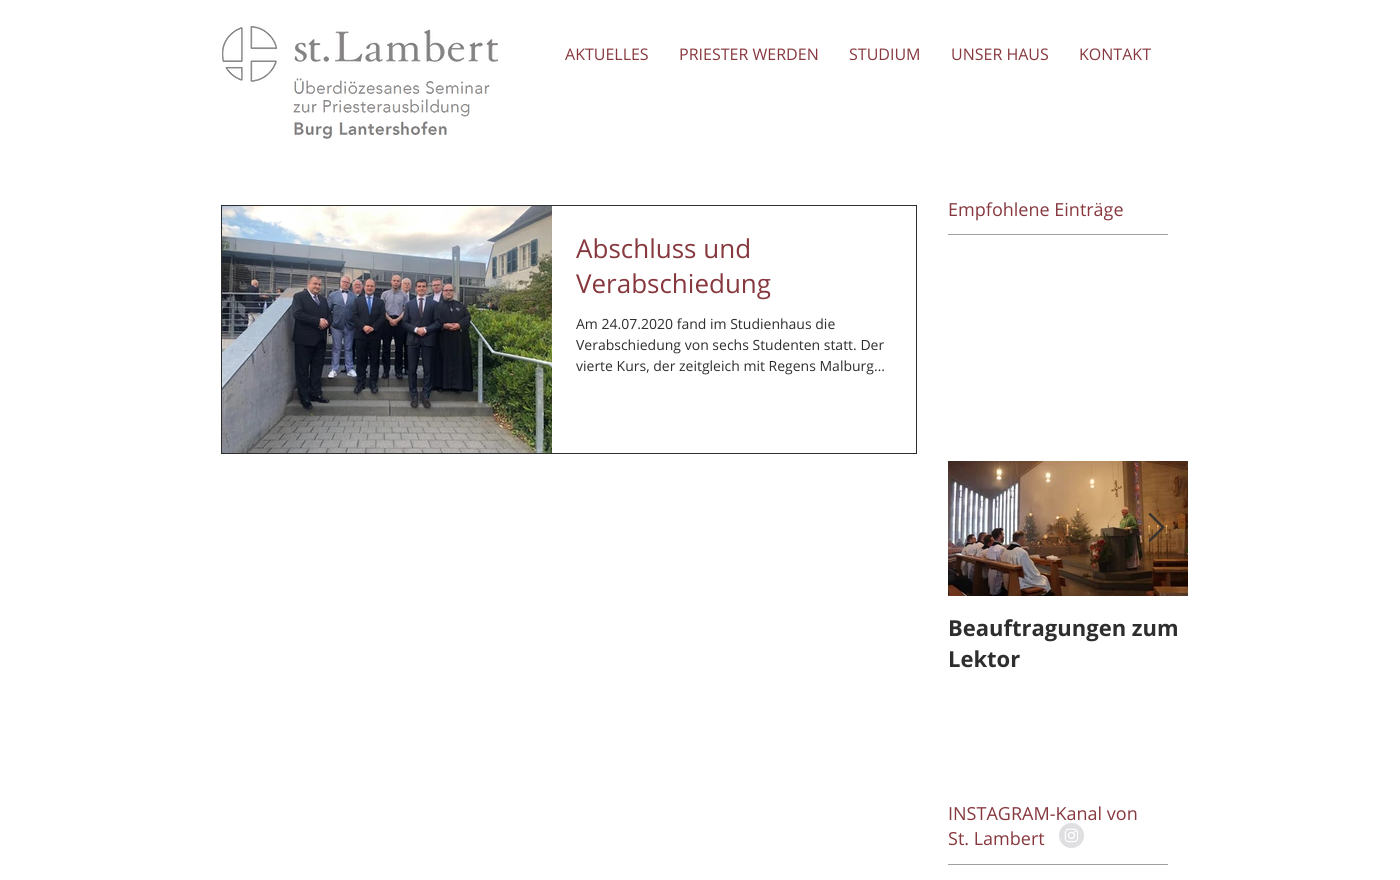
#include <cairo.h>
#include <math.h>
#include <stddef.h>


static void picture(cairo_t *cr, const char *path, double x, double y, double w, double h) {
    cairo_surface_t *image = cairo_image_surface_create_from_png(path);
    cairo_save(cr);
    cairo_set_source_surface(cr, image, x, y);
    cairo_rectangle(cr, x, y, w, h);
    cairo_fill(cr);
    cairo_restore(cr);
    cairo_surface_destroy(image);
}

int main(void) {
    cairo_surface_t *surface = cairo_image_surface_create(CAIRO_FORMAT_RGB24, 1400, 880);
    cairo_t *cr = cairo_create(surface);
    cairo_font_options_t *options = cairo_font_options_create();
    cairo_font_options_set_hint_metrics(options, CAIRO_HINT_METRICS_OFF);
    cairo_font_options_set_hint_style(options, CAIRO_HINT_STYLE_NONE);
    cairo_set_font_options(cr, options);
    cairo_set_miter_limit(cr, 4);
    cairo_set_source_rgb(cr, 1, 1, 1);
    cairo_paint(cr);
    picture(cr, "img1.png", 222, 26, 276, 113);
    cairo_select_font_face(cr, "Open Sans", CAIRO_FONT_SLANT_NORMAL, CAIRO_FONT_WEIGHT_NORMAL);
    cairo_set_font_size(cr, 16);
    cairo_set_source_rgb(cr, 0.529, 0.22, 0.243);
    cairo_move_to(cr, 565, 60);
    cairo_show_text(cr, "AKTUELLES");
    cairo_move_to(cr, 679, 60);
    cairo_show_text(cr, "PRIESTER WERDEN");
    cairo_move_to(cr, 849, 60);
    cairo_show_text(cr, "STUDIUM");
    cairo_move_to(cr, 951, 60);
    cairo_show_text(cr, "UNSER HAUS");
    cairo_move_to(cr, 1079, 60);
    cairo_show_text(cr, "KONTAKT");
    cairo_set_font_size(cr, 18);
    cairo_move_to(cr, 948, 216);
    cairo_show_text(cr, "Empfohlene Einträge");
    cairo_set_source_rgb(cr, 0.627, 0.627, 0.624);
    cairo_rectangle(cr, 948, 234, 220, 1);
    cairo_fill(cr);
    cairo_rectangle(cr, 221.5, 205.5, 695, 248);
    cairo_set_source_rgb(cr, 0.184, 0.18, 0.18);
    cairo_set_line_width(cr, 1);
    cairo_stroke(cr);
    picture(cr, "img2.png", 222, 206, 330, 247);
    cairo_set_font_size(cr, 26);
    cairo_set_source_rgb(cr, 0.529, 0.22, 0.243);
    cairo_move_to(cr, 576, 258);
    cairo_show_text(cr, "Abschluss und");
    cairo_move_to(cr, 576, 293);
    cairo_show_text(cr, "Verabschiedung");
    cairo_set_font_size(cr, 14);
    cairo_set_source_rgb(cr, 0.184, 0.18, 0.18);
    cairo_move_to(cr, 576, 329);
    cairo_show_text(cr, "Am 24.07.2020 fand im Studienhaus die");
    cairo_move_to(cr, 576, 350);
    cairo_show_text(cr, "Verabschiedung von sechs Studenten statt. Der");
    cairo_move_to(cr, 576, 371);
    cairo_show_text(cr, "vierte Kurs, der zeitgleich mit Regens Malburg…");
    picture(cr, "img4.png", 948, 461, 240, 135);
    picture(cr, "img3.png", 1148, 513, 17, 29);
    cairo_select_font_face(cr, "Open Sans", CAIRO_FONT_SLANT_NORMAL, CAIRO_FONT_WEIGHT_BOLD);
    cairo_set_font_size(cr, 22);
    cairo_move_to(cr, 948, 636);
    cairo_show_text(cr, "Beauftragungen zum");
    cairo_move_to(cr, 948, 667);
    cairo_show_text(cr, "Lektor");
    cairo_select_font_face(cr, "Open Sans", CAIRO_FONT_SLANT_NORMAL, CAIRO_FONT_WEIGHT_NORMAL);
    cairo_set_font_size(cr, 18);
    cairo_set_source_rgb(cr, 0.529, 0.22, 0.243);
    cairo_move_to(cr, 948, 820);
    cairo_show_text(cr, "INSTAGRAM-Kanal von");
    cairo_move_to(cr, 948, 845);
    cairo_show_text(cr, "St. Lambert");
    picture(cr, "img5.png", 1059, 823, 25, 25);
    cairo_set_source_rgb(cr, 0.627, 0.627, 0.624);
    cairo_rectangle(cr, 948, 864, 220, 1);
    cairo_fill(cr);
    cairo_surface_write_to_png(surface, "page.png");
    cairo_font_options_destroy(options);
    cairo_destroy(cr);
    cairo_surface_destroy(surface);
    return 0;
}
